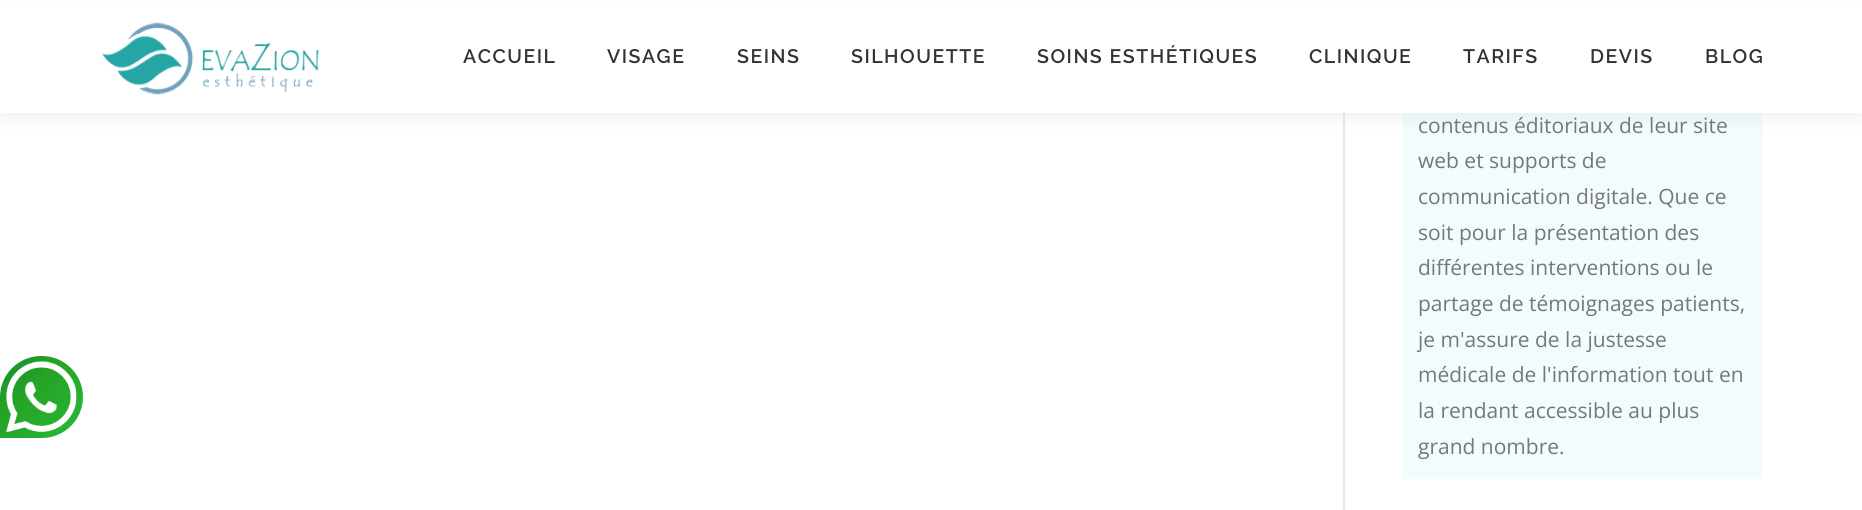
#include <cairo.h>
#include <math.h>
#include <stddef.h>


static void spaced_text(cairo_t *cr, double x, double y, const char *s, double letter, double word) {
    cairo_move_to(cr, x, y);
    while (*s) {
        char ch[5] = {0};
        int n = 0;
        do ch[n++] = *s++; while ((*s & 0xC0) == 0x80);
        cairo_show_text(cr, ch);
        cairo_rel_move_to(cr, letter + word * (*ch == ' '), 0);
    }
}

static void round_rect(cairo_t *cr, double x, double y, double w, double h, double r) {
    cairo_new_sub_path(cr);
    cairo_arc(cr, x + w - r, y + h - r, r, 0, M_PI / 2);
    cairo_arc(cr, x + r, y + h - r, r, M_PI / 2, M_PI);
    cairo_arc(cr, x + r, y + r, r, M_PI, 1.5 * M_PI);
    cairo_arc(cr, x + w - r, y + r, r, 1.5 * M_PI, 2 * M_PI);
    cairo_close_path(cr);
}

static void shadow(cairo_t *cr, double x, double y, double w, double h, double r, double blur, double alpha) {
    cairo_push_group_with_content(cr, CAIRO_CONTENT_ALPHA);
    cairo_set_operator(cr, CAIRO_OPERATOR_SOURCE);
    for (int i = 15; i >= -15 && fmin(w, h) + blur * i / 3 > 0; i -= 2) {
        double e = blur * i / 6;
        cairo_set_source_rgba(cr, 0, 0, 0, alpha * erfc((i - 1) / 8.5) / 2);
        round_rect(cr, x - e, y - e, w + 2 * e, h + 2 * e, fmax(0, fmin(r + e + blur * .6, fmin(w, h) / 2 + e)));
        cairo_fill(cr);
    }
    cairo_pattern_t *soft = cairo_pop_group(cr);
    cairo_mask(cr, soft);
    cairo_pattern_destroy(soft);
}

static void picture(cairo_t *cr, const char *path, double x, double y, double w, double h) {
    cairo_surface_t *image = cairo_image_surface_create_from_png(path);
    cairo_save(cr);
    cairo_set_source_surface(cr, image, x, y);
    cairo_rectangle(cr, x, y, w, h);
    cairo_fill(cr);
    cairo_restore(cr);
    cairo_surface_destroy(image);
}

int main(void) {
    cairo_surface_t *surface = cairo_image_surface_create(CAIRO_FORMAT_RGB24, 1862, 510);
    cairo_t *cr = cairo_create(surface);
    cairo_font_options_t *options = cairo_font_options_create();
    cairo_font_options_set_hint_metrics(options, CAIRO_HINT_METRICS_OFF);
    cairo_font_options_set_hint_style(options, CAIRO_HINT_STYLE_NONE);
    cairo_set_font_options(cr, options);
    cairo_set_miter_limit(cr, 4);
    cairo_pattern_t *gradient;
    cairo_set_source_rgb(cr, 1, 1, 1);
    cairo_paint(cr);
    gradient = cairo_pattern_create_linear(0, 356, 83, 438);
    cairo_pattern_add_color_stop_rgba(gradient, 0, 0.059, 0.569, 0.173, 1);
    cairo_pattern_add_color_stop_rgba(gradient, 0.37, 0.145, 0.639, 0.145, 1);
    cairo_pattern_add_color_stop_rgba(gradient, 1, 0.165, 0.725, 0.224, 1);
    cairo_set_source(cr, gradient);
    cairo_pattern_destroy(gradient);
    cairo_new_path(cr);
    cairo_move_to(cr, 41, 356);
    cairo_line_to(cr, 42, 356);
    cairo_curve_to(cr, 64.5, 356, 83, 374.5, 83, 397);
    cairo_curve_to(cr, 83, 419.5, 64.5, 438, 42, 438);
    cairo_line_to(cr, 0, 438);
    cairo_line_to(cr, 0, 397);
    cairo_curve_to(cr, 0, 374.5, 18.5, 356, 41, 356);
    cairo_close_path(cr);
    cairo_fill(cr);
    picture(cr, "img2.png", 24, 381, 33, 33);
    picture(cr, "img1.png", 6, 361, 71, 71);
    cairo_set_source_rgb(cr, 0.914, 0.914, 0.914);
    cairo_rectangle(cr, 1343, 113, 2, 397);
    cairo_fill(cr);
    cairo_set_source_rgb(cr, 0.949, 0.988, 0.988);
    cairo_rectangle(cr, 1403, 113, 360, 366);
    cairo_fill(cr);
    cairo_set_source_rgb(cr, 0.196, 0.196, 0.196);
    shadow(cr, 0, 8, 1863, 112, 0, 7.5, 0.06);
    cairo_set_source_rgb(cr, 1, 1, 1);
    cairo_rectangle(cr, 0, 2, 1862, 111);
    cairo_fill(cr);
    picture(cr, "img3.png", 102, 22, 217, 73);
    cairo_select_font_face(cr, "Raleway SemiBold", CAIRO_FONT_SLANT_NORMAL, CAIRO_FONT_WEIGHT_NORMAL);
    cairo_set_font_size(cr, 19.5);
    cairo_set_source_rgb(cr, 0.2, 0.2, 0.2);
    spaced_text(cr, 463, 63, "ACCUEIL", 1.5, 0);
    spaced_text(cr, 607, 63, "VISAGE", 1.5, 0);
    spaced_text(cr, 737, 63, "SEINS", 1.5, 0);
    spaced_text(cr, 851, 63, "SILHOUETTE", 1.5, 0);
    spaced_text(cr, 1037, 63, "SOINS ESTHÉTIQUES", 1.5, 0);
    spaced_text(cr, 1309, 63, "CLINIQUE", 1.5, 0);
    spaced_text(cr, 1463, 63, "TARIFS", 1.5, 0);
    spaced_text(cr, 1590, 63, "DEVIS", 1.5, 0);
    spaced_text(cr, 1705, 63, "BLOG", 1.5, 0);
    cairo_select_font_face(cr, "Open Sans", CAIRO_FONT_SLANT_NORMAL, CAIRO_FONT_WEIGHT_NORMAL);
    cairo_set_font_size(cr, 21);
    cairo_set_source_rgb(cr, 0.467, 0.467, 0.467);
    cairo_move_to(cr, 1418, 133);
    cairo_show_text(cr, "contenus éditoriaux de leur site");
    cairo_move_to(cr, 1418, 168);
    cairo_show_text(cr, "web et supports de");
    cairo_move_to(cr, 1418, 204);
    cairo_show_text(cr, "communication digitale. Que ce");
    cairo_move_to(cr, 1418, 240);
    cairo_show_text(cr, "soit pour la présentation des");
    cairo_move_to(cr, 1418, 275);
    cairo_show_text(cr, "différentes interventions ou le");
    cairo_move_to(cr, 1418, 311);
    cairo_show_text(cr, "partage de témoignages patients,");
    cairo_move_to(cr, 1418, 347);
    cairo_show_text(cr, "je m'assure de la justesse");
    cairo_move_to(cr, 1418, 382);
    cairo_show_text(cr, "médicale de l'information tout en");
    cairo_move_to(cr, 1418, 418);
    cairo_show_text(cr, "la rendant accessible au plus");
    cairo_move_to(cr, 1418, 454);
    cairo_show_text(cr, "grand nombre.");
    cairo_surface_write_to_png(surface, "page.png");
    cairo_font_options_destroy(options);
    cairo_destroy(cr);
    cairo_surface_destroy(surface);
    return 0;
}
